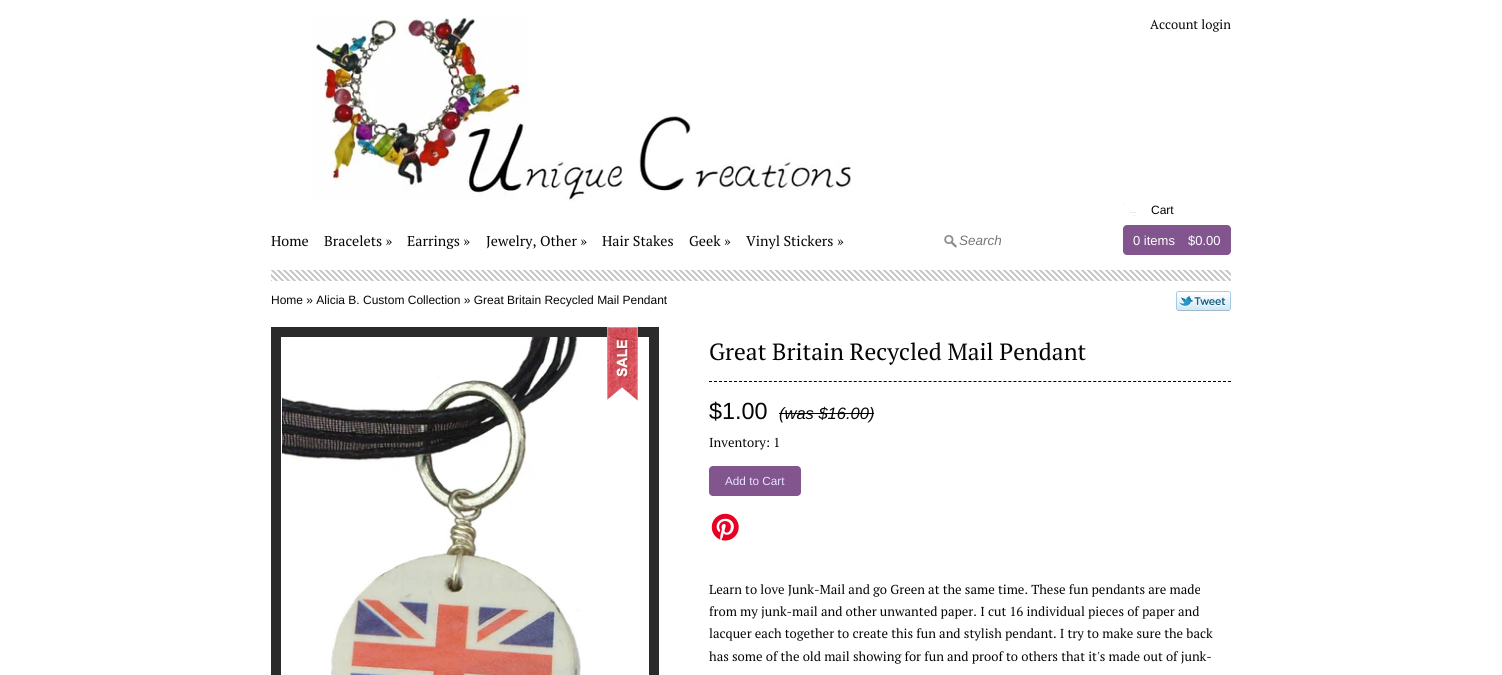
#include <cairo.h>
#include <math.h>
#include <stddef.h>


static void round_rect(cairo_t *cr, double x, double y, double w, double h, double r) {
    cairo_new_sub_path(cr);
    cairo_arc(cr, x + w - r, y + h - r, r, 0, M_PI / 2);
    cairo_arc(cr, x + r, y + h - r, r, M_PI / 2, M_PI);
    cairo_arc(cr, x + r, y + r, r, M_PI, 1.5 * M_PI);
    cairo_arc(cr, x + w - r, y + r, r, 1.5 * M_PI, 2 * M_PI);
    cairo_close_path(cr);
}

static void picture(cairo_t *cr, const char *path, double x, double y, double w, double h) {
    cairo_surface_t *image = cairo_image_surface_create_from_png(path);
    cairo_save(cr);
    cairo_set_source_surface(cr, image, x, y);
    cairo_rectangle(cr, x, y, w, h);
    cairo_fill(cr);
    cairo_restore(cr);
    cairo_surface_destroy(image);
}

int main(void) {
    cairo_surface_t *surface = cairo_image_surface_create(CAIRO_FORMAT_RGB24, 1502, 675);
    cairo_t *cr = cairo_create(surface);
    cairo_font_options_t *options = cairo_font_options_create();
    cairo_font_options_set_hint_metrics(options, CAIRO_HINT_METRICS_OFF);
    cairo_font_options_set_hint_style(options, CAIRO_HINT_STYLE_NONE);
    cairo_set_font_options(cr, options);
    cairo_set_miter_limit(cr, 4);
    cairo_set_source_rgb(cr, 1, 1, 1);
    cairo_paint(cr);
    picture(cr, "img1.png", 311, 17, 540, 185);
    cairo_select_font_face(cr, "PT Serif", CAIRO_FONT_SLANT_NORMAL, CAIRO_FONT_WEIGHT_NORMAL);
    cairo_set_font_size(cr, 13);
    cairo_set_source_rgb(cr, 0.02, 0.02, 0.02);
    cairo_move_to(cr, 1150, 29);
    cairo_show_text(cr, "Account login");
    picture(cr, "img2.png", 271, 270, 960, 11);
    cairo_set_font_size(cr, 14.25);
    cairo_move_to(cr, 271, 246);
    cairo_show_text(cr, "Home");
    cairo_move_to(cr, 324, 246);
    cairo_show_text(cr, "Bracelets »");
    cairo_move_to(cr, 407, 246);
    cairo_show_text(cr, "Earrings »");
    cairo_move_to(cr, 486, 246);
    cairo_show_text(cr, "Jewelry, Other »");
    cairo_move_to(cr, 602, 246);
    cairo_show_text(cr, "Hair Stakes");
    cairo_move_to(cr, 689, 246);
    cairo_show_text(cr, "Geek »");
    cairo_move_to(cr, 746, 246);
    cairo_show_text(cr, "Vinyl Stickers »");
    picture(cr, "img3.png", 944, 235, 13, 13);
    cairo_select_font_face(cr, "Liberation Sans", CAIRO_FONT_SLANT_ITALIC, CAIRO_FONT_WEIGHT_NORMAL);
    cairo_set_font_size(cr, 13.5);
    cairo_set_source_rgb(cr, 0.467, 0.467, 0.467);
    cairo_move_to(cr, 959, 245);
    cairo_show_text(cr, "Search");
    cairo_set_source_rgb(cr, 0.51, 0.333, 0.561);
    round_rect(cr, 1123, 225, 108, 30, 4);
    cairo_fill(cr);
    picture(cr, "img4.png", 1124, 204, 13, 12);
    cairo_select_font_face(cr, "Liberation Sans", CAIRO_FONT_SLANT_NORMAL, CAIRO_FONT_WEIGHT_NORMAL);
    cairo_set_font_size(cr, 12);
    cairo_set_source_rgb(cr, 0.02, 0.02, 0.02);
    cairo_move_to(cr, 1151, 214);
    cairo_show_text(cr, "Cart");
    cairo_set_font_size(cr, 13);
    cairo_set_source_rgb(cr, 1, 1, 1);
    cairo_move_to(cr, 1133, 245);
    cairo_show_text(cr, "0 items");
    cairo_move_to(cr, 1188, 245);
    cairo_show_text(cr, "$0.00");
    cairo_set_font_size(cr, 12);
    cairo_set_source_rgb(cr, 0.02, 0.02, 0.02);
    cairo_move_to(cr, 271, 304);
    cairo_show_text(cr, "Home » Alicia B. Custom Collection » Great Britain Recycled Mail Pendant");
    picture(cr, "img5.png", 1176, 291, 55, 20);
    cairo_rectangle(cr, 276, 332, 378, 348);
    cairo_set_source_rgb(cr, 0.165, 0.169, 0.165);
    cairo_set_line_width(cr, 10);
    cairo_stroke(cr);
    picture(cr, "img6.png", 282, 337, 299, 338);
    picture(cr, "img7.png", 607, 327, 31, 74);
    cairo_new_path(cr);
    cairo_move_to(cr, 709, 381.5);
    cairo_line_to(cr, 1231, 381.5);
    cairo_set_source_rgb(cr, 0, 0, 0);
    cairo_set_line_width(cr, 1);
    cairo_set_dash(cr, (double[]){3, 1.99}, 2, 0);
    cairo_stroke(cr);
    cairo_select_font_face(cr, "PT Serif", CAIRO_FONT_SLANT_NORMAL, CAIRO_FONT_WEIGHT_NORMAL);
    cairo_set_font_size(cr, 23.4);
    cairo_set_source_rgb(cr, 0.02, 0.02, 0.02);
    cairo_move_to(cr, 709, 360);
    cairo_show_text(cr, "Great Britain Recycled Mail Pendant");
    cairo_select_font_face(cr, "Liberation Sans", CAIRO_FONT_SLANT_NORMAL, CAIRO_FONT_WEIGHT_NORMAL);
    cairo_move_to(cr, 709, 419);
    cairo_show_text(cr, "$1.00");
    cairo_select_font_face(cr, "Liberation Sans", CAIRO_FONT_SLANT_ITALIC, CAIRO_FONT_WEIGHT_NORMAL);
    cairo_set_font_size(cr, 16.5);
    cairo_move_to(cr, 779, 419);
    cairo_show_text(cr, "(was $16.00)");
    cairo_set_source_rgb(cr, 0, 0, 0);
    cairo_rectangle(cr, 779, 413, 95, 1);
    cairo_fill(cr);
    cairo_select_font_face(cr, "PT Serif", CAIRO_FONT_SLANT_NORMAL, CAIRO_FONT_WEIGHT_NORMAL);
    cairo_set_font_size(cr, 13);
    cairo_set_source_rgb(cr, 0.02, 0.02, 0.02);
    cairo_move_to(cr, 709, 447);
    cairo_show_text(cr, "Inventory: 1");
    cairo_set_source_rgb(cr, 0.51, 0.333, 0.561);
    round_rect(cr, 709, 466, 92, 30, 4);
    cairo_fill(cr);
    cairo_select_font_face(cr, "Liberation Sans", CAIRO_FONT_SLANT_NORMAL, CAIRO_FONT_WEIGHT_NORMAL);
    cairo_set_font_size(cr, 11.75);
    cairo_set_source_rgb(cr, 0.906, 0.886, 0.992);
    cairo_move_to(cr, 725, 485);
    cairo_show_text(cr, "Add to Cart");
    picture(cr, "img8.png", 711, 513, 28, 28);
    cairo_select_font_face(cr, "PT Serif", CAIRO_FONT_SLANT_NORMAL, CAIRO_FONT_WEIGHT_NORMAL);
    cairo_set_font_size(cr, 13);
    cairo_set_source_rgb(cr, 0.02, 0.02, 0.02);
    cairo_move_to(cr, 709, 594);
    cairo_show_text(cr, "Learn to love Junk-Mail and go Green at the same time. These fun pendants are made");
    cairo_move_to(cr, 709, 616);
    cairo_show_text(cr, "from my junk-mail and other unwanted paper. I cut 16 individual pieces of paper and");
    cairo_move_to(cr, 709, 638);
    cairo_show_text(cr, "lacquer each together to create this fun and stylish pendant. I try to make sure the back");
    cairo_move_to(cr, 709, 661);
    cairo_show_text(cr, "has some of the old mail showing for fun and proof to others that it's made out of junk-");
    cairo_surface_write_to_png(surface, "page.png");
    cairo_font_options_destroy(options);
    cairo_destroy(cr);
    cairo_surface_destroy(surface);
    return 0;
}
